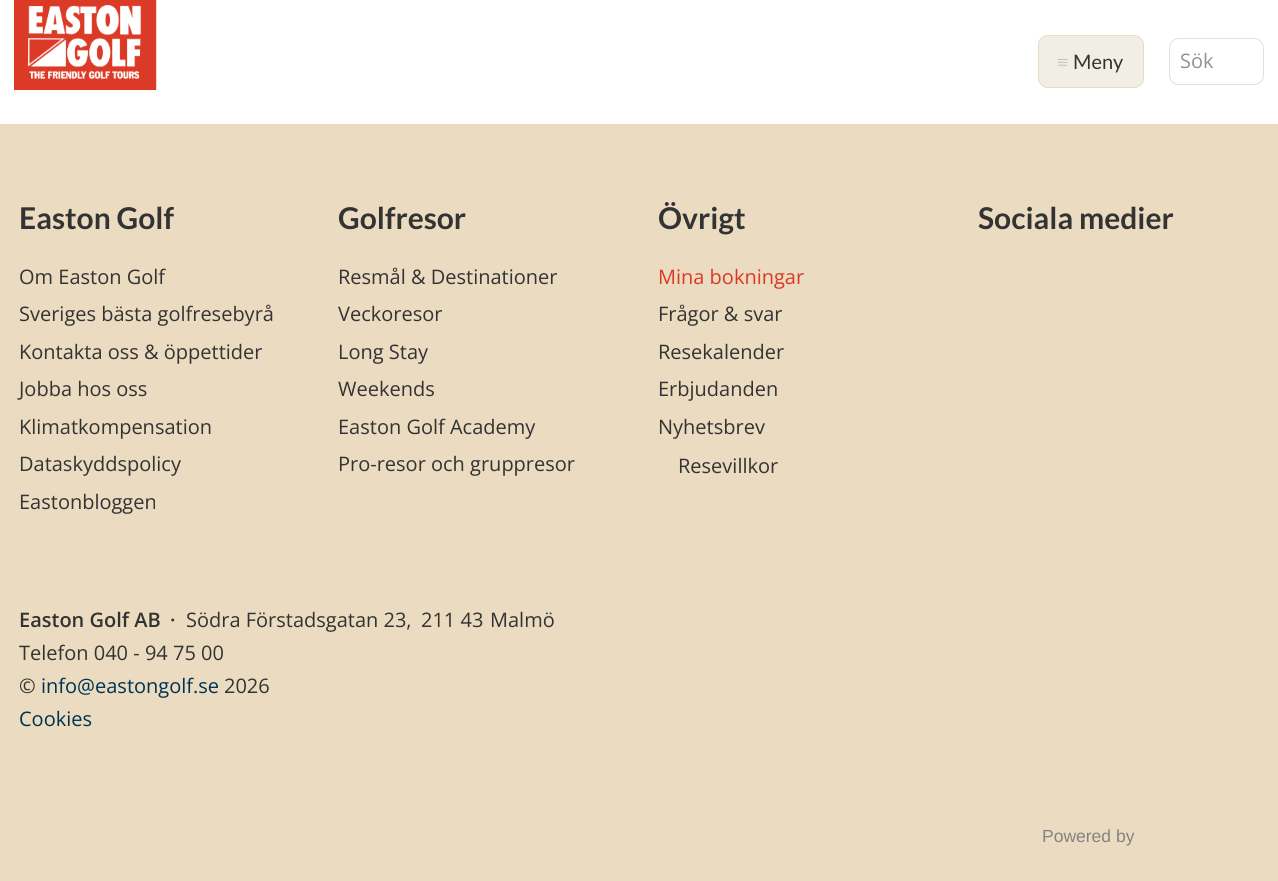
#include <cairo.h>
#include <math.h>
#include <stddef.h>


static void round_rect(cairo_t *cr, double x, double y, double w, double h, double r) {
    cairo_new_sub_path(cr);
    cairo_arc(cr, x + w - r, y + h - r, r, 0, M_PI / 2);
    cairo_arc(cr, x + r, y + h - r, r, M_PI / 2, M_PI);
    cairo_arc(cr, x + r, y + r, r, M_PI, 1.5 * M_PI);
    cairo_arc(cr, x + w - r, y + r, r, 1.5 * M_PI, 2 * M_PI);
    cairo_close_path(cr);
}

static void picture(cairo_t *cr, const char *path, double x, double y, double w, double h) {
    cairo_surface_t *image = cairo_image_surface_create_from_png(path);
    cairo_save(cr);
    cairo_set_source_surface(cr, image, x, y);
    cairo_rectangle(cr, x, y, w, h);
    cairo_fill(cr);
    cairo_restore(cr);
    cairo_surface_destroy(image);
}

int main(void) {
    cairo_surface_t *surface = cairo_image_surface_create(CAIRO_FORMAT_RGB24, 1278, 881);
    cairo_t *cr = cairo_create(surface);
    cairo_font_options_t *options = cairo_font_options_create();
    cairo_font_options_set_hint_metrics(options, CAIRO_HINT_METRICS_OFF);
    cairo_font_options_set_hint_style(options, CAIRO_HINT_STYLE_NONE);
    cairo_set_font_options(cr, options);
    cairo_set_miter_limit(cr, 4);
    cairo_set_source_rgb(cr, 0.918, 0.859, 0.757);
    cairo_paint(cr);
    cairo_set_source_rgb(cr, 1, 1, 1);
    cairo_rectangle(cr, 0, 0, 1278, 124);
    cairo_fill(cr);
    picture(cr, "img1.png", 14, 0, 143, 90);
    cairo_set_source_rgb(cr, 0.945, 0.933, 0.898);
    round_rect(cr, 1038.5, 35.5, 105, 52, 9.5);
    cairo_fill_preserve(cr);
    cairo_set_source_rgb(cr, 0.918, 0.859, 0.757);
    cairo_set_line_width(cr, 1);
    cairo_stroke(cr);
    cairo_select_font_face(cr, "Liberation Serif", CAIRO_FONT_SLANT_NORMAL, CAIRO_FONT_WEIGHT_NORMAL);
    cairo_set_font_size(cr, 20);
    cairo_set_source_rgb(cr, 0.761, 0.749, 0.725);
    cairo_move_to(cr, 1057, 69);
    cairo_show_text(cr, "≡");
    cairo_select_font_face(cr, "Lato", CAIRO_FONT_SLANT_NORMAL, CAIRO_FONT_WEIGHT_NORMAL);
    cairo_set_source_rgb(cr, 0.2, 0.2, 0.2);
    cairo_move_to(cr, 1073, 69);
    cairo_show_text(cr, "Meny");
    round_rect(cr, 1169.5, 38.5, 94, 46, 9.5);
    cairo_set_source_rgb(cr, 0.878, 0.878, 0.875);
    cairo_stroke(cr);
    cairo_select_font_face(cr, "Open Sans", CAIRO_FONT_SLANT_NORMAL, CAIRO_FONT_WEIGHT_NORMAL);
    cairo_set_source_rgb(cr, 0.569, 0.569, 0.569);
    cairo_move_to(cr, 1180, 68);
    cairo_show_text(cr, "Sök");
    cairo_select_font_face(cr, "Lato", CAIRO_FONT_SLANT_NORMAL, CAIRO_FONT_WEIGHT_BOLD);
    cairo_set_font_size(cr, 30);
    cairo_set_source_rgb(cr, 0.2, 0.2, 0.2);
    cairo_move_to(cr, 19, 229);
    cairo_show_text(cr, "Easton Golf");
    cairo_select_font_face(cr, "Open Sans", CAIRO_FONT_SLANT_NORMAL, CAIRO_FONT_WEIGHT_NORMAL);
    cairo_set_font_size(cr, 20);
    cairo_move_to(cr, 19, 284);
    cairo_show_text(cr, "Om Easton Golf");
    cairo_move_to(cr, 19, 321);
    cairo_show_text(cr, "Sveriges bästa golfresebyrå");
    cairo_move_to(cr, 19, 359);
    cairo_show_text(cr, "Kontakta oss & öppettider");
    cairo_move_to(cr, 19, 396);
    cairo_show_text(cr, "Jobba hos oss");
    cairo_move_to(cr, 19, 434);
    cairo_show_text(cr, "Klimatkompensation");
    cairo_move_to(cr, 19, 471);
    cairo_show_text(cr, "Dataskyddspolicy");
    cairo_move_to(cr, 19, 509);
    cairo_show_text(cr, "Eastonbloggen");
    cairo_select_font_face(cr, "Lato", CAIRO_FONT_SLANT_NORMAL, CAIRO_FONT_WEIGHT_BOLD);
    cairo_set_font_size(cr, 30);
    cairo_move_to(cr, 338, 229);
    cairo_show_text(cr, "Golfresor");
    cairo_select_font_face(cr, "Open Sans", CAIRO_FONT_SLANT_NORMAL, CAIRO_FONT_WEIGHT_NORMAL);
    cairo_set_font_size(cr, 20);
    cairo_move_to(cr, 338, 284);
    cairo_show_text(cr, "Resmål & Destinationer");
    cairo_move_to(cr, 338, 321);
    cairo_show_text(cr, "Veckoresor");
    cairo_move_to(cr, 338, 359);
    cairo_show_text(cr, "Long Stay");
    cairo_move_to(cr, 338, 396);
    cairo_show_text(cr, "Weekends");
    cairo_move_to(cr, 338, 434);
    cairo_show_text(cr, "Easton Golf Academy");
    cairo_move_to(cr, 338, 471);
    cairo_show_text(cr, "Pro-resor och gruppresor");
    cairo_select_font_face(cr, "Lato", CAIRO_FONT_SLANT_NORMAL, CAIRO_FONT_WEIGHT_BOLD);
    cairo_set_font_size(cr, 30);
    cairo_move_to(cr, 658, 229);
    cairo_show_text(cr, "Övrigt");
    cairo_select_font_face(cr, "Open Sans", CAIRO_FONT_SLANT_NORMAL, CAIRO_FONT_WEIGHT_NORMAL);
    cairo_set_font_size(cr, 20);
    cairo_set_source_rgb(cr, 0.855, 0.227, 0.141);
    cairo_move_to(cr, 658, 284);
    cairo_show_text(cr, "Mina bokningar");
    cairo_set_source_rgb(cr, 0.2, 0.2, 0.2);
    cairo_move_to(cr, 658, 321);
    cairo_show_text(cr, "Frågor & svar");
    cairo_move_to(cr, 658, 359);
    cairo_show_text(cr, "Resekalender");
    cairo_move_to(cr, 658, 396);
    cairo_show_text(cr, "Erbjudanden");
    cairo_move_to(cr, 658, 434);
    cairo_show_text(cr, "Nyhetsbrev");
    cairo_move_to(cr, 678, 473);
    cairo_show_text(cr, "Resevillkor");
    cairo_select_font_face(cr, "Lato", CAIRO_FONT_SLANT_NORMAL, CAIRO_FONT_WEIGHT_BOLD);
    cairo_set_font_size(cr, 30);
    cairo_move_to(cr, 978, 229);
    cairo_show_text(cr, "Sociala medier");
    cairo_select_font_face(cr, "Open Sans SemiBold", CAIRO_FONT_SLANT_NORMAL, CAIRO_FONT_WEIGHT_NORMAL);
    cairo_set_font_size(cr, 20);
    cairo_move_to(cr, 19, 627);
    cairo_show_text(cr, "Easton Golf AB");
    cairo_move_to(cr, 170, 627);
    cairo_show_text(cr, "·");
    cairo_select_font_face(cr, "Open Sans", CAIRO_FONT_SLANT_NORMAL, CAIRO_FONT_WEIGHT_NORMAL);
    cairo_move_to(cr, 186, 627);
    cairo_show_text(cr, "Södra Förstadsgatan 23,");
    cairo_move_to(cr, 421, 627);
    cairo_show_text(cr, "211 43");
    cairo_move_to(cr, 490, 627);
    cairo_show_text(cr, "Malmö");
    cairo_move_to(cr, 19, 660);
    cairo_show_text(cr, "Telefon 040 - 94 75 00");
    cairo_move_to(cr, 19, 693);
    cairo_show_text(cr, "©");
    cairo_set_source_rgb(cr, 0, 0.196, 0.318);
    cairo_move_to(cr, 41, 693);
    cairo_show_text(cr, "info@eastongolf.se");
    cairo_set_source_rgb(cr, 0.2, 0.2, 0.2);
    cairo_move_to(cr, 224, 693);
    cairo_show_text(cr, "2026");
    cairo_set_source_rgb(cr, 0, 0.196, 0.318);
    cairo_move_to(cr, 19, 726);
    cairo_show_text(cr, "Cookies");
    cairo_select_font_face(cr, "Liberation Sans", CAIRO_FONT_SLANT_NORMAL, CAIRO_FONT_WEIGHT_NORMAL);
    cairo_set_font_size(cr, 17.5);
    cairo_set_source_rgb(cr, 0.514, 0.514, 0.514);
    cairo_move_to(cr, 1042, 842);
    cairo_show_text(cr, "Powered by");
    cairo_surface_write_to_png(surface, "page.png");
    cairo_font_options_destroy(options);
    cairo_destroy(cr);
    cairo_surface_destroy(surface);
    return 0;
}
